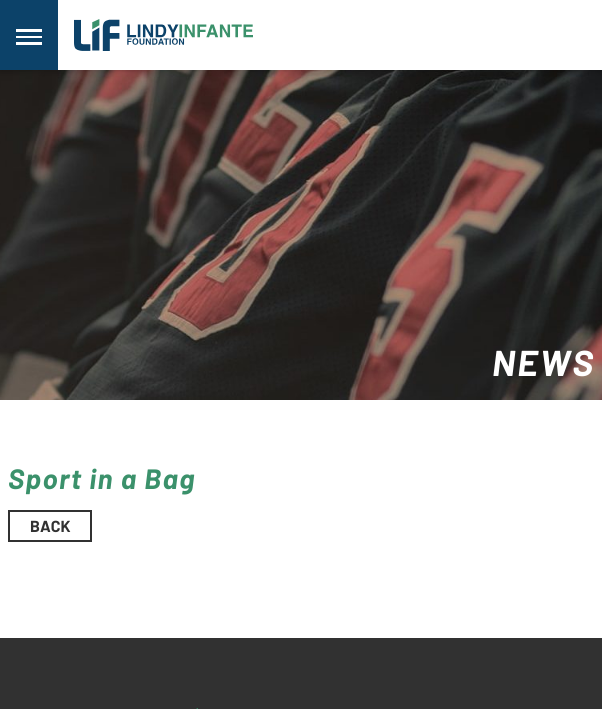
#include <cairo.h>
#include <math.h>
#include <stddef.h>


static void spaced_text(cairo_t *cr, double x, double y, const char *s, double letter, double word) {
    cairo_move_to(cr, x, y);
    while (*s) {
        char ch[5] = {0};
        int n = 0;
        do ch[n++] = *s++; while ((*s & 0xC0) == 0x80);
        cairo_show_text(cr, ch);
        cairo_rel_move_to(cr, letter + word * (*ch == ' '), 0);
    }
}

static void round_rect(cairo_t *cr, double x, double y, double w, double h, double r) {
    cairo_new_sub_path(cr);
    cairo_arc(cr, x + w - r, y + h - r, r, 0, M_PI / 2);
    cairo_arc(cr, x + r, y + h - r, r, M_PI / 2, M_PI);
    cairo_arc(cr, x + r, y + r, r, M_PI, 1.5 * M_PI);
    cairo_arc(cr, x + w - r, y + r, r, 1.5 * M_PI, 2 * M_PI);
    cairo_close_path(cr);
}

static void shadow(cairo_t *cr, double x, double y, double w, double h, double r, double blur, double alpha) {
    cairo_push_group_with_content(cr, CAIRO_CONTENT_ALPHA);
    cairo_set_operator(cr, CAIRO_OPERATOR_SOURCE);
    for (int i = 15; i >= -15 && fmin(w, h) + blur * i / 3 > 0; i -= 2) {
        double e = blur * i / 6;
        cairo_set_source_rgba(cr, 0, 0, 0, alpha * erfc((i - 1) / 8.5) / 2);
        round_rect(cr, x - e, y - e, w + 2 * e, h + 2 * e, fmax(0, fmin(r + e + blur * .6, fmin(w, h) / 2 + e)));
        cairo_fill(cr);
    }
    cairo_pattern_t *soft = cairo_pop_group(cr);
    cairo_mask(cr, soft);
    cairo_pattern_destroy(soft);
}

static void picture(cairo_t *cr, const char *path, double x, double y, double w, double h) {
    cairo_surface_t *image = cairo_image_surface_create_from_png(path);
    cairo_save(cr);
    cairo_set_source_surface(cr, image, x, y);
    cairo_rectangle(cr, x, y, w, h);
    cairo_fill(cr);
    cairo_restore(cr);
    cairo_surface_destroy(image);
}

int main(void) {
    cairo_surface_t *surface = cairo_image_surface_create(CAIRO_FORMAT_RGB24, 602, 709);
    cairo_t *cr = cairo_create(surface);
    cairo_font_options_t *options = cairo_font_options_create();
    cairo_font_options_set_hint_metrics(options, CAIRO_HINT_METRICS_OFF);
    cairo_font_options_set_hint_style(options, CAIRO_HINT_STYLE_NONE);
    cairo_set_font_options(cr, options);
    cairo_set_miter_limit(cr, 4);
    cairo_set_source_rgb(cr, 1, 1, 1);
    cairo_paint(cr);
    picture(cr, "img2.png", 0, 70, 602, 330);
    cairo_set_source_rgb(cr, 0, 0, 0);
    shadow(cr, 0, 0, 602, 70, 0, 4, 0.3);
    cairo_set_source_rgb(cr, 1, 1, 1);
    cairo_rectangle(cr, 58, 0, 544, 70);
    cairo_fill(cr);
    cairo_set_source_rgb(cr, 0.047, 0.259, 0.412);
    cairo_rectangle(cr, 0, 0, 58, 70);
    cairo_fill(cr);
    cairo_set_source_rgb(cr, 1, 1, 1);
    cairo_rectangle(cr, 16, 36, 26, 2);
    cairo_fill(cr);
    cairo_rectangle(cr, 16, 29, 26, 3);
    cairo_fill(cr);
    cairo_rectangle(cr, 16, 42, 26, 3);
    cairo_fill(cr);
    picture(cr, "img1.png", 74, 19, 179, 32);
    cairo_select_font_face(cr, "Barlow", CAIRO_FONT_SLANT_ITALIC, CAIRO_FONT_WEIGHT_BOLD);
    cairo_set_font_size(cr, 36);
    spaced_text(cr, 492, 376, "NEWS", 2, 0);
    cairo_set_font_size(cr, 28);
    cairo_set_source_rgb(cr, 0.231, 0.569, 0.42);
    spaced_text(cr, 8, 489, "Sport in a Bag", 1.4, 0);
    cairo_rectangle(cr, 9, 511, 82, 30);
    cairo_set_source_rgb(cr, 0.192, 0.192, 0.192);
    cairo_stroke(cr);
    cairo_select_font_face(cr, "Barlow", CAIRO_FONT_SLANT_NORMAL, CAIRO_FONT_WEIGHT_BOLD);
    cairo_set_font_size(cr, 16);
    cairo_move_to(cr, 30, 532);
    cairo_show_text(cr, "BACK");
    cairo_rectangle(cr, 0, 638, 602, 71);
    cairo_fill(cr);
    picture(cr, "img3.png", 196, 708, 2, 1);
    cairo_surface_write_to_png(surface, "page.png");
    cairo_font_options_destroy(options);
    cairo_destroy(cr);
    cairo_surface_destroy(surface);
    return 0;
}
